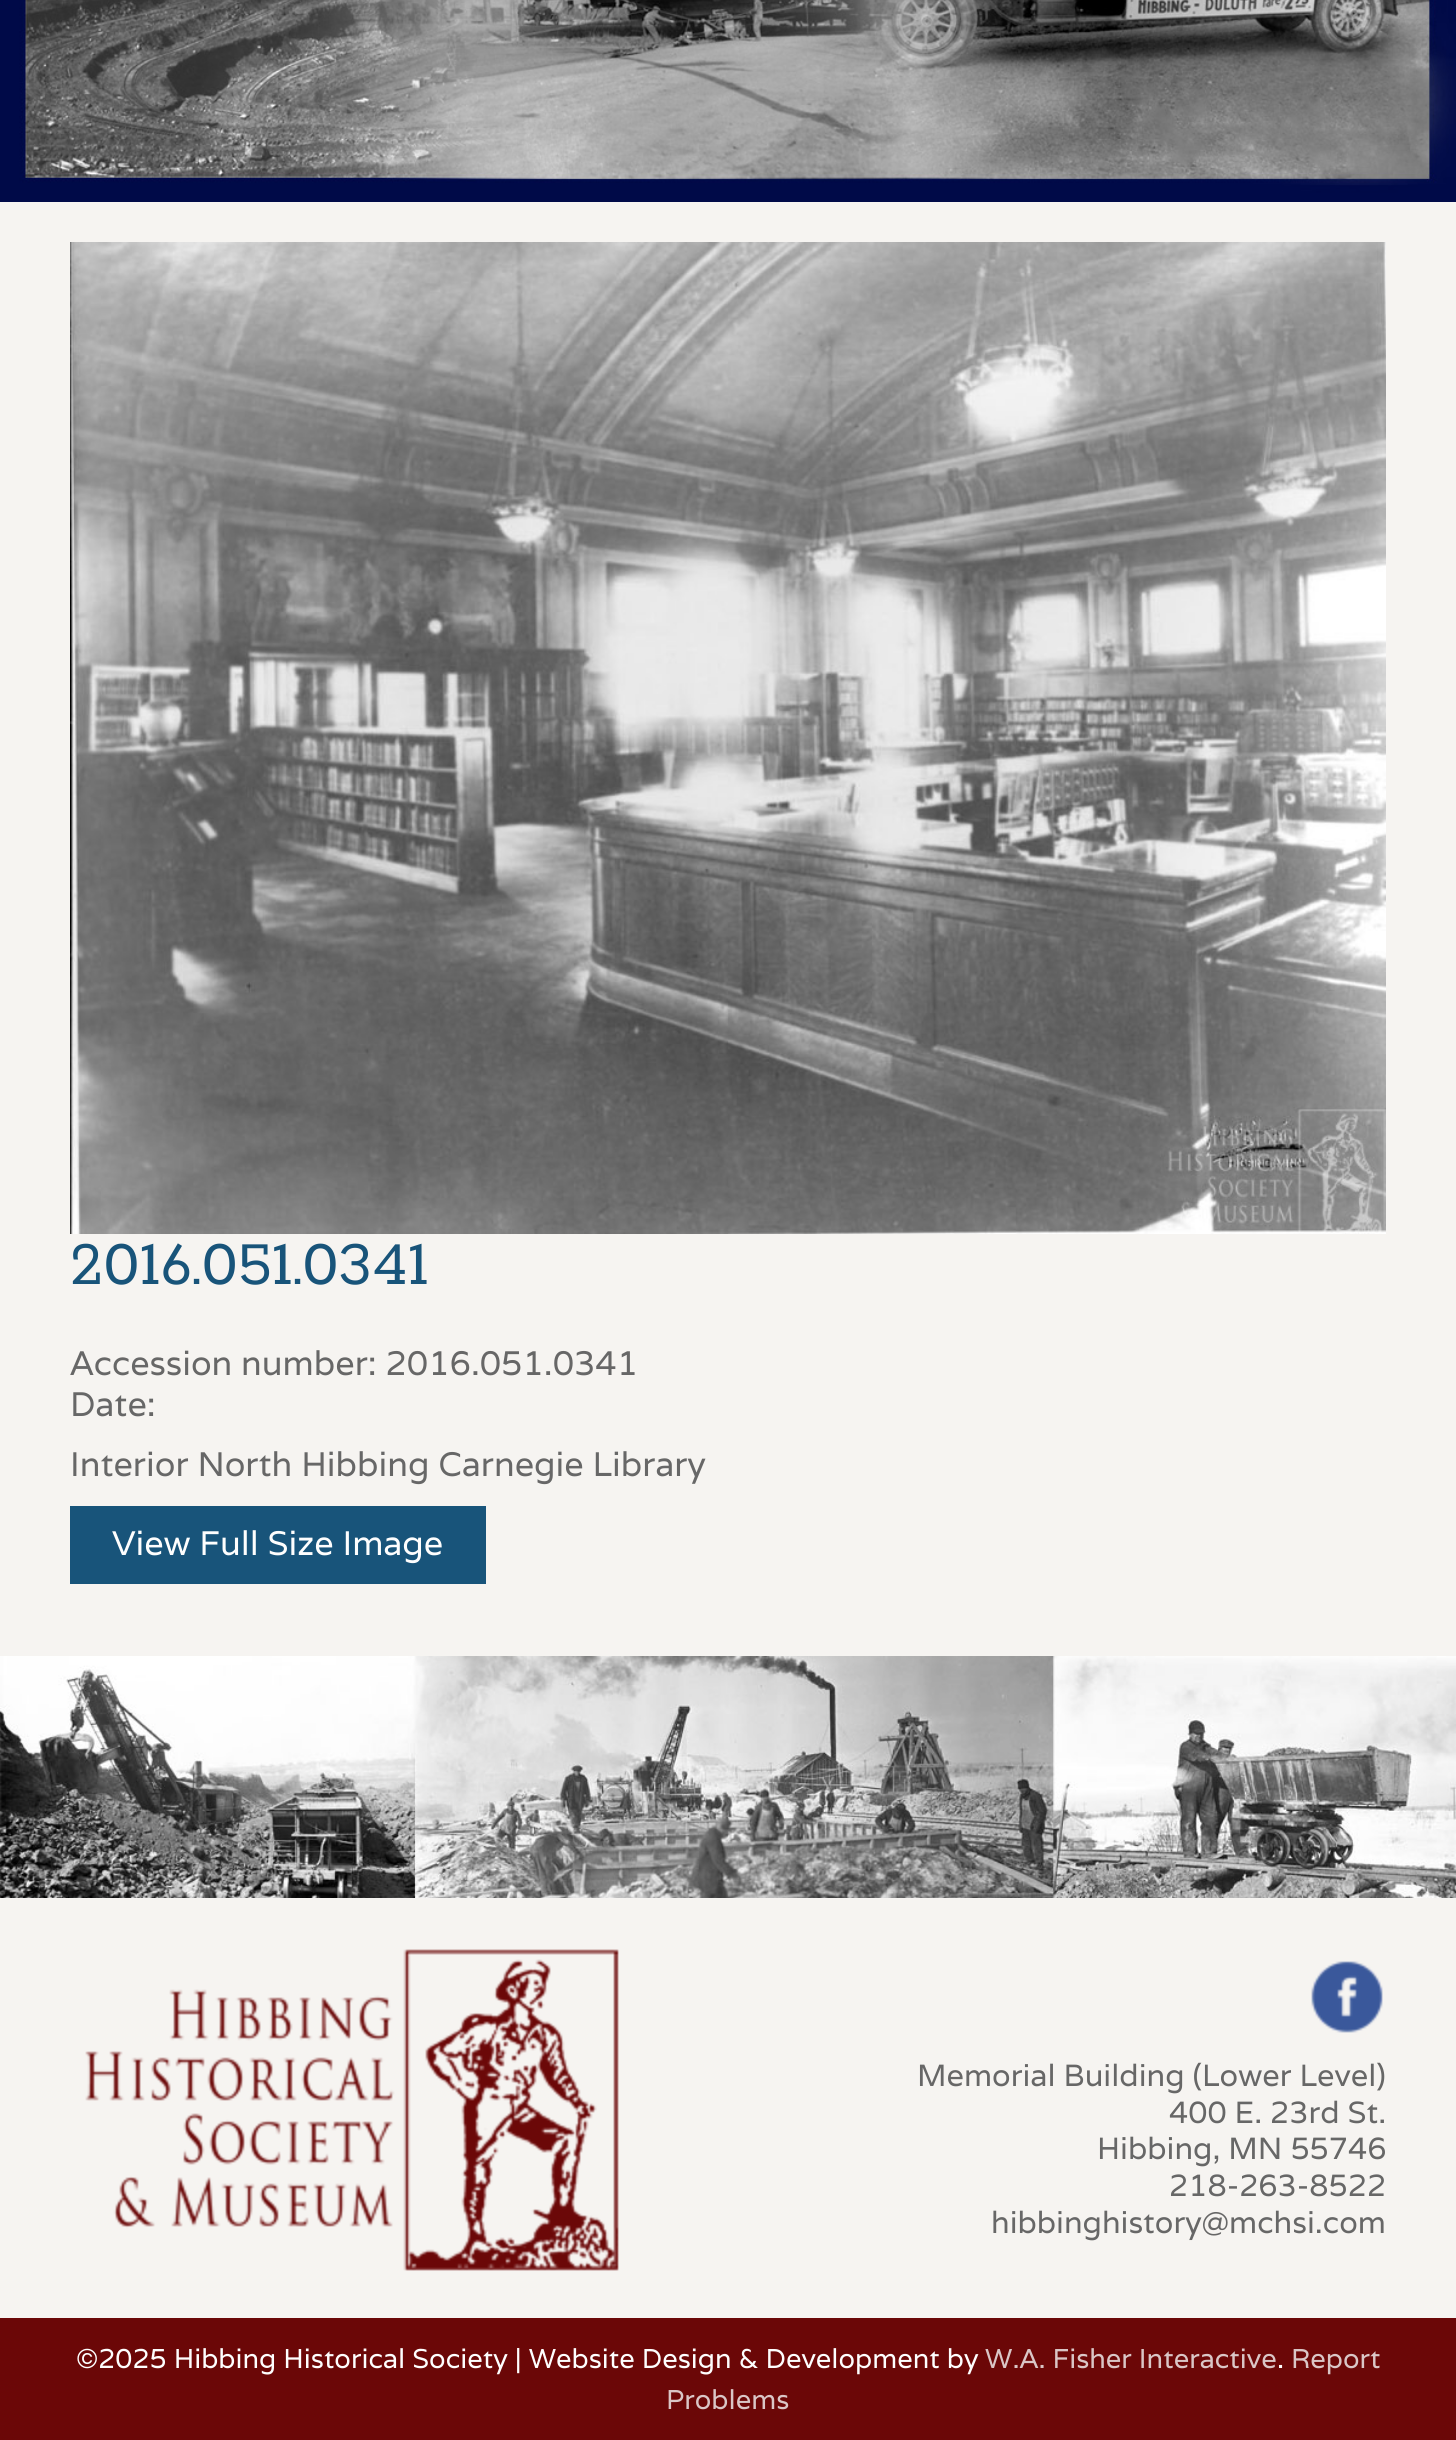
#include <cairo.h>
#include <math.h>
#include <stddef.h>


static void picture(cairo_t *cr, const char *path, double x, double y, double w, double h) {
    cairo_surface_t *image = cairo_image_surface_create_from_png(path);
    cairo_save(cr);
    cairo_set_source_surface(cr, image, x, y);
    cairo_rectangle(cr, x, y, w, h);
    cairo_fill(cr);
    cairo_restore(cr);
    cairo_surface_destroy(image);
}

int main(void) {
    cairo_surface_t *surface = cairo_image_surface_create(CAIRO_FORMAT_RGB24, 1456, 2440);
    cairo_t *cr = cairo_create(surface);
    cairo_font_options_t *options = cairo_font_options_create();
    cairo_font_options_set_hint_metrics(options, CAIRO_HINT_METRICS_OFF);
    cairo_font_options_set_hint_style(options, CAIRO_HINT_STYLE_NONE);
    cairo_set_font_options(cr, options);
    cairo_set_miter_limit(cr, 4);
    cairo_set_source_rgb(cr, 0.961, 0.957, 0.945);
    cairo_paint(cr);
    picture(cr, "img1.png", 0, 0, 1456, 202);
    picture(cr, "img2.png", 70, 242, 1316, 992);
    cairo_select_font_face(cr, "Rokkitt SemiBold", CAIRO_FONT_SLANT_NORMAL, CAIRO_FONT_WEIGHT_NORMAL);
    cairo_set_font_size(cr, 68);
    cairo_set_source_rgb(cr, 0.094, 0.329, 0.478);
    cairo_move_to(cr, 70, 1284);
    cairo_show_text(cr, "2016.051.0341");
    cairo_select_font_face(cr, "Varela", CAIRO_FONT_SLANT_NORMAL, CAIRO_FONT_WEIGHT_NORMAL);
    cairo_set_font_size(cr, 34);
    cairo_set_source_rgb(cr, 0.404, 0.404, 0.404);
    cairo_move_to(cr, 70, 1375);
    cairo_show_text(cr, "Accession number: 2016.051.0341");
    cairo_move_to(cr, 70, 1416);
    cairo_show_text(cr, "Date:");
    cairo_move_to(cr, 70, 1476);
    cairo_show_text(cr, "Interior North Hibbing Carnegie Library");
    cairo_set_source_rgb(cr, 0.094, 0.329, 0.478);
    cairo_rectangle(cr, 70, 1506, 416, 78);
    cairo_fill(cr);
    cairo_set_source_rgb(cr, 0.996, 0.996, 0.996);
    cairo_move_to(cr, 112, 1555);
    cairo_show_text(cr, "View Full Size Image");
    picture(cr, "img3.png", 0, 1656, 1456, 242);
    picture(cr, "img4.png", 85, 1949, 534, 322);
    picture(cr, "img5.png", 1311, 1961, 72, 72);
    cairo_set_font_size(cr, 30.6);
    cairo_set_source_rgb(cr, 0.404, 0.404, 0.404);
    cairo_move_to(cr, 917, 2086);
    cairo_show_text(cr, "Memorial Building (Lower Level)");
    cairo_move_to(cr, 1169, 2123);
    cairo_show_text(cr, "400 E. 23rd St.");
    cairo_move_to(cr, 1097, 2159);
    cairo_show_text(cr, "Hibbing, MN 55746");
    cairo_move_to(cr, 1169, 2196);
    cairo_show_text(cr, "218-263-8522");
    cairo_move_to(cr, 991, 2233);
    cairo_show_text(cr, "hibbinghistory@mchsi.com");
    cairo_set_source_rgb(cr, 0.42, 0.031, 0.031);
    cairo_rectangle(cr, 0, 2318, 1456, 122);
    cairo_fill(cr);
    cairo_set_font_size(cr, 27.2);
    cairo_set_source_rgb(cr, 0.996, 0.996, 0.996);
    cairo_move_to(cr, 76, 2368);
    cairo_show_text(cr, "©2025 Hibbing Historical Society | Website Design & Development by");
    cairo_set_source_rgb(cr, 0.855, 0.776, 0.776);
    cairo_move_to(cr, 985, 2368);
    cairo_show_text(cr, "W.A. Fisher Interactive");
    cairo_set_source_rgb(cr, 0.996, 0.996, 0.996);
    cairo_move_to(cr, 1277, 2368);
    cairo_show_text(cr, ".");
    cairo_set_source_rgb(cr, 0.855, 0.776, 0.776);
    cairo_move_to(cr, 1291, 2368);
    cairo_show_text(cr, "Report");
    cairo_move_to(cr, 666, 2409);
    cairo_show_text(cr, "Problems");
    cairo_surface_write_to_png(surface, "page.png");
    cairo_font_options_destroy(options);
    cairo_destroy(cr);
    cairo_surface_destroy(surface);
    return 0;
}
